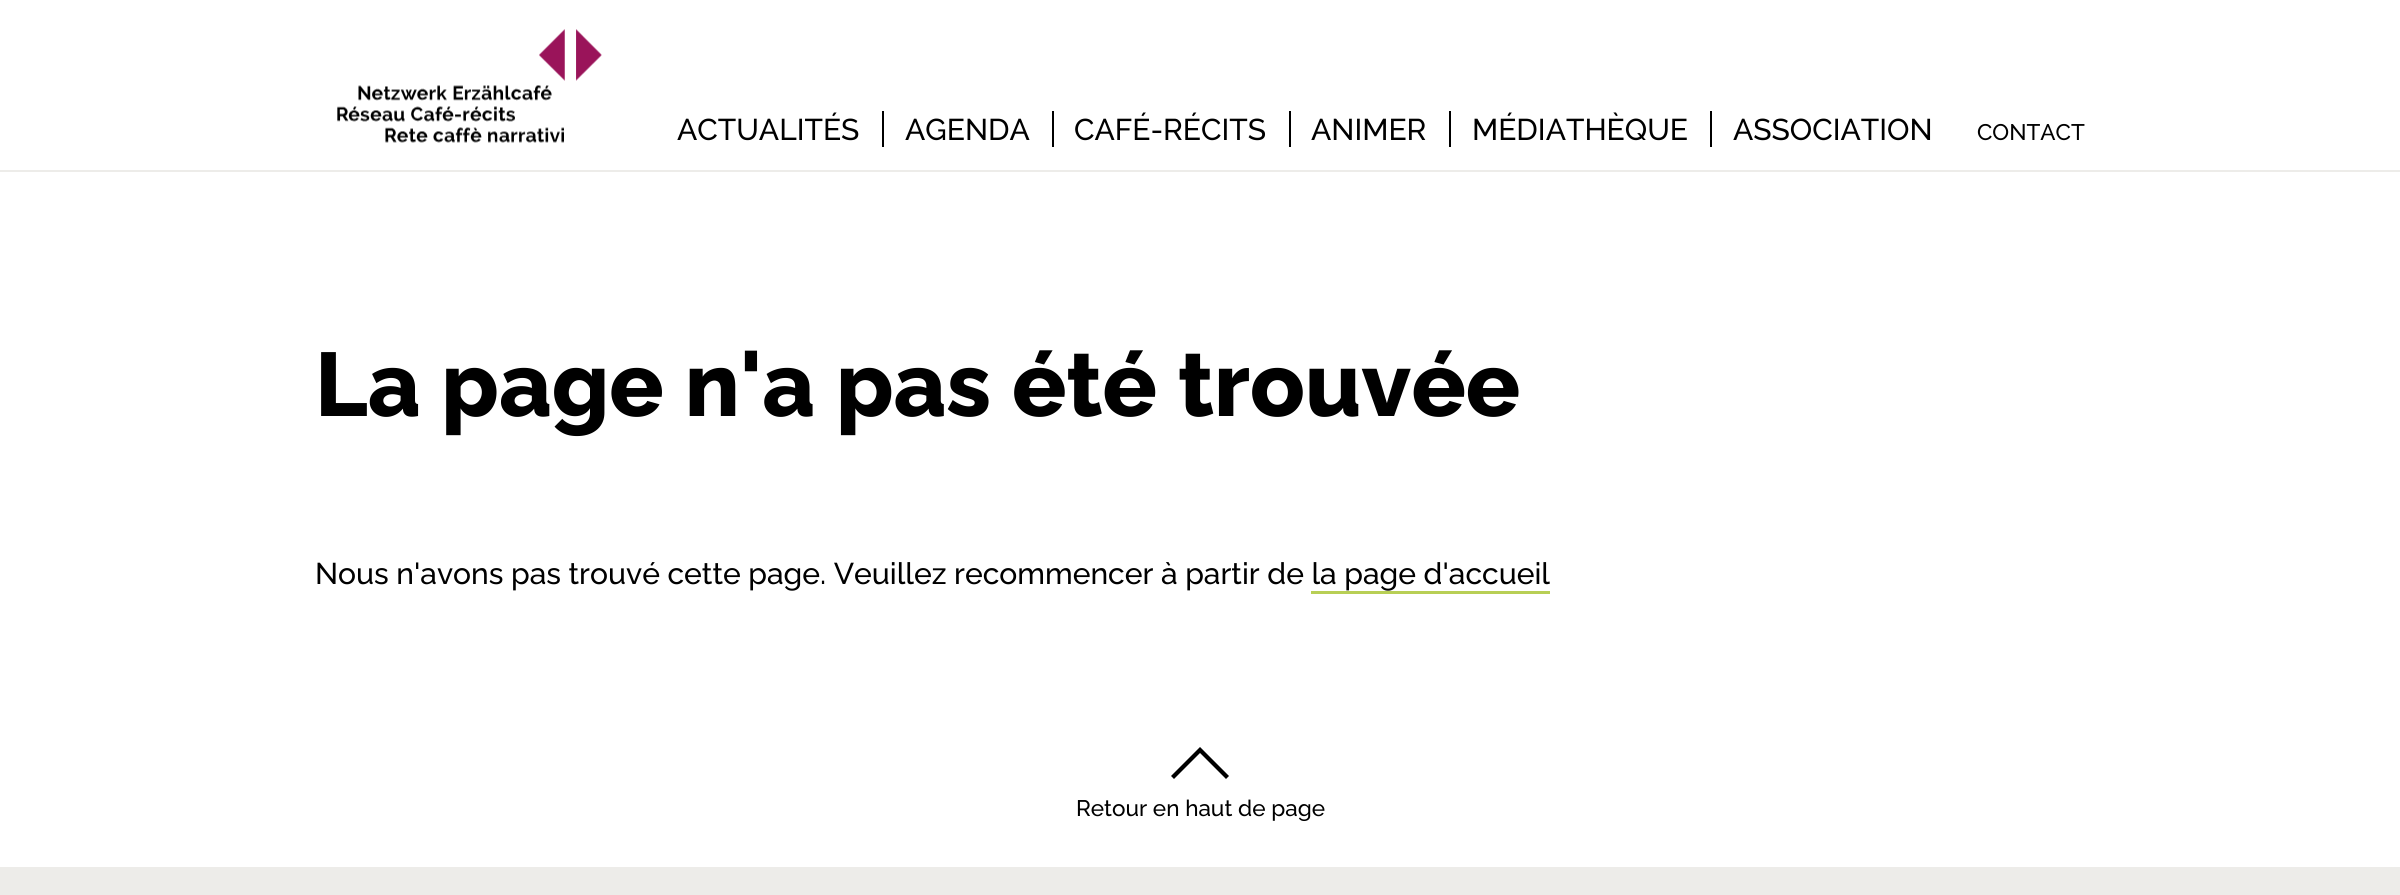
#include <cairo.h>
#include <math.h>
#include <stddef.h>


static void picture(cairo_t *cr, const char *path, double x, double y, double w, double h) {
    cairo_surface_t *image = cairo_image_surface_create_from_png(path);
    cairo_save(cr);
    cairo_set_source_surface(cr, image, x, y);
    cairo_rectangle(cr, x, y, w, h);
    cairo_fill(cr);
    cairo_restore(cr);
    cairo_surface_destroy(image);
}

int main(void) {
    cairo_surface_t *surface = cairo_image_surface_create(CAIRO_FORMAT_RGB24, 2400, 895);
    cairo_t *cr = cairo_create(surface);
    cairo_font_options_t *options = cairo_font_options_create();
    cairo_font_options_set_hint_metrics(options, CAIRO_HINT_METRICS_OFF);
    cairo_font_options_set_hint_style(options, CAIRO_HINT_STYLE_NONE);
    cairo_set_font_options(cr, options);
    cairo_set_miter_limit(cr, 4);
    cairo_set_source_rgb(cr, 1, 1, 1);
    cairo_paint(cr);
    cairo_set_source_rgb(cr, 0.929, 0.925, 0.914);
    cairo_rectangle(cr, 0, 170, 2400, 2);
    cairo_fill(cr);
    picture(cr, "img1.png", 337, 29, 265, 114);
    cairo_select_font_face(cr, "Raleway Medium", CAIRO_FONT_SLANT_NORMAL, CAIRO_FONT_WEIGHT_NORMAL);
    cairo_set_font_size(cr, 30);
    cairo_set_source_rgb(cr, 0, 0, 0);
    cairo_move_to(cr, 677, 140);
    cairo_show_text(cr, "ACTUALITÉS");
    cairo_rectangle(cr, 882, 111, 2, 36);
    cairo_fill(cr);
    cairo_move_to(cr, 905, 140);
    cairo_show_text(cr, "AGENDA");
    cairo_rectangle(cr, 1052, 111, 2, 36);
    cairo_fill(cr);
    cairo_move_to(cr, 1074, 140);
    cairo_show_text(cr, "CAFÉ-RÉCITS");
    cairo_rectangle(cr, 1289, 111, 2, 36);
    cairo_fill(cr);
    cairo_move_to(cr, 1311, 140);
    cairo_show_text(cr, "ANIMER");
    cairo_rectangle(cr, 1449, 111, 2, 36);
    cairo_fill(cr);
    cairo_move_to(cr, 1472, 140);
    cairo_show_text(cr, "MÉDIATHÈQUE");
    cairo_rectangle(cr, 1710, 111, 2, 36);
    cairo_fill(cr);
    cairo_move_to(cr, 1733, 140);
    cairo_show_text(cr, "ASSOCIATION");
    cairo_set_font_size(cr, 22.5);
    cairo_move_to(cr, 1977, 140);
    cairo_show_text(cr, "CONTACT");
    cairo_select_font_face(cr, "Raleway ExtraBold", CAIRO_FONT_SLANT_NORMAL, CAIRO_FONT_WEIGHT_NORMAL);
    cairo_set_font_size(cr, 90);
    cairo_move_to(cr, 315, 416);
    cairo_show_text(cr, "La page n'a pas été trouvée");
    cairo_select_font_face(cr, "Raleway Medium", CAIRO_FONT_SLANT_NORMAL, CAIRO_FONT_WEIGHT_NORMAL);
    cairo_set_font_size(cr, 30);
    cairo_move_to(cr, 315, 584);
    cairo_show_text(cr, "Nous n'avons pas trouvé cette page. Veuillez recommencer à partir de la page d'accueil");
    cairo_set_source_rgb(cr, 0.722, 0.812, 0.333);
    cairo_rectangle(cr, 1311, 591, 239, 3);
    cairo_fill(cr);
    cairo_set_source_rgb(cr, 0, 0, 0);
    cairo_new_path(cr);
    cairo_move_to(cr, 1174, 779);
    cairo_line_to(cr, 1171, 776);
    cairo_line_to(cr, 1200, 747);
    cairo_line_to(cr, 1229, 776);
    cairo_line_to(cr, 1226, 779);
    cairo_line_to(cr, 1200, 753);
    cairo_close_path(cr);
    cairo_fill(cr);
    cairo_set_font_size(cr, 22.5);
    cairo_move_to(cr, 1076, 816);
    cairo_show_text(cr, "Retour en haut de page");
    cairo_set_source_rgb(cr, 0.929, 0.925, 0.914);
    cairo_rectangle(cr, 0, 867, 2400, 28);
    cairo_fill(cr);
    cairo_surface_write_to_png(surface, "page.png");
    cairo_font_options_destroy(options);
    cairo_destroy(cr);
    cairo_surface_destroy(surface);
    return 0;
}
